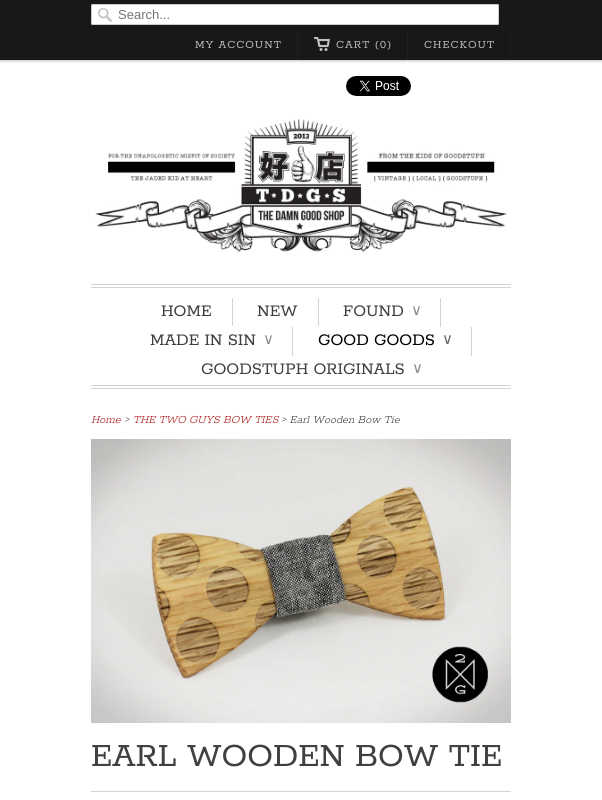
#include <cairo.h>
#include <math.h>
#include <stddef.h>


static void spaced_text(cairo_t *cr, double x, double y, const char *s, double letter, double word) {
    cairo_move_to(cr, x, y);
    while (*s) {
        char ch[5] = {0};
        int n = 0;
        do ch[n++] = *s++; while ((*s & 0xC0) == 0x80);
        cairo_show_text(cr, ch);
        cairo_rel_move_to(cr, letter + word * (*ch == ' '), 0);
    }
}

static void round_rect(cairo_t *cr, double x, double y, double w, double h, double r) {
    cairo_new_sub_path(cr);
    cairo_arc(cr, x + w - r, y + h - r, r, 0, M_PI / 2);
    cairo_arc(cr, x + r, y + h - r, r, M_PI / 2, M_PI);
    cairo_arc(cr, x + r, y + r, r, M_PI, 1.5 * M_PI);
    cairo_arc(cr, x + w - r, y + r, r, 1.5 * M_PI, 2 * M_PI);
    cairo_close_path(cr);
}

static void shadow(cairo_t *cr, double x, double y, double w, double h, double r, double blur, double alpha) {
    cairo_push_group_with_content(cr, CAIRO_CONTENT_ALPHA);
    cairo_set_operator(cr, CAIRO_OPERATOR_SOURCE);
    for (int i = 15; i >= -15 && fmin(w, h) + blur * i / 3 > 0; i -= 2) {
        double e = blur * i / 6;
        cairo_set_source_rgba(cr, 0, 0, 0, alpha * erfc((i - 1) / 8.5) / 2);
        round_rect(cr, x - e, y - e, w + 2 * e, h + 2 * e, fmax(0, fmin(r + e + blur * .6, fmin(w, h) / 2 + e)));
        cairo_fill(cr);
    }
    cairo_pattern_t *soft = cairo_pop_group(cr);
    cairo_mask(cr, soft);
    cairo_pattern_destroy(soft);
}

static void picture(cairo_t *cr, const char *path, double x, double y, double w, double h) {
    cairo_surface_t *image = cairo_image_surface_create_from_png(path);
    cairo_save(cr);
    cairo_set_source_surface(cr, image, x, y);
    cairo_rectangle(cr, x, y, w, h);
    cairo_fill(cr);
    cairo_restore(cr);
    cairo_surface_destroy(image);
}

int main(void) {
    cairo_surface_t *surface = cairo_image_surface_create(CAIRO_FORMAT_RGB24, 602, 800);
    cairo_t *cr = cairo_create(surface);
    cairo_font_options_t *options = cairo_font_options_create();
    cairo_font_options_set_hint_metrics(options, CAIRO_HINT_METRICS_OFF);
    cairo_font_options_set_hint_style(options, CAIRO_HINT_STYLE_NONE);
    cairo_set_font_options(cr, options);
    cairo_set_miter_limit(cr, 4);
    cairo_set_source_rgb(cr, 1, 1, 1);
    cairo_paint(cr);
    cairo_set_source_rgb(cr, 0, 0, 0);
    shadow(cr, 0, 1, 602, 60, 0, 1.5, 0.25);
    cairo_set_source_rgb(cr, 0.094, 0.094, 0.094);
    cairo_rectangle(cr, 0, 0, 602, 59);
    cairo_fill(cr);
    cairo_set_source_rgb(cr, 0.086, 0.086, 0.086);
    cairo_rectangle(cr, 0, 59, 602, 1);
    cairo_fill(cr);
    cairo_set_source_rgb(cr, 1, 1, 1);
    round_rect(cr, 91, 4, 408, 21, 2);
    cairo_fill(cr);
    picture(cr, "img1.png", 98, 8, 14, 14);
    round_rect(cr, 91.5, 4.5, 407, 20, 1.5);
    cairo_set_source_rgb(cr, 0.8, 0.8, 0.8);
    cairo_set_line_width(cr, 1);
    cairo_stroke(cr);
    cairo_select_font_face(cr, "Liberation Sans", CAIRO_FONT_SLANT_NORMAL, CAIRO_FONT_WEIGHT_NORMAL);
    cairo_set_font_size(cr, 13);
    cairo_set_source_rgb(cr, 0.459, 0.459, 0.459);
    cairo_move_to(cr, 118, 19);
    cairo_show_text(cr, "Search...");
    cairo_set_source_rgb(cr, 0.122, 0.129, 0.129);
    cairo_rectangle(cr, 297, 30, 1, 30);
    cairo_fill(cr);
    cairo_set_source_rgb(cr, 0.098, 0.102, 0.106);
    cairo_rectangle(cr, 179, 30, 1, 30);
    cairo_fill(cr);
    cairo_select_font_face(cr, "Rokkitt", CAIRO_FONT_SLANT_NORMAL, CAIRO_FONT_WEIGHT_NORMAL);
    cairo_set_font_size(cr, 12);
    cairo_set_source_rgb(cr, 0.714, 0.714, 0.714);
    spaced_text(cr, 195, 48, "MY ACCOUNT", 1, 0);
    cairo_set_source_rgb(cr, 0.122, 0.129, 0.129);
    cairo_rectangle(cr, 407, 30, 1, 30);
    cairo_fill(cr);
    cairo_set_source_rgb(cr, 0.098, 0.102, 0.106);
    cairo_rectangle(cr, 298, 30, 1, 30);
    cairo_fill(cr);
    picture(cr, "img2.png", 314, 37, 16, 14);
    cairo_set_source_rgb(cr, 0.714, 0.714, 0.714);
    spaced_text(cr, 336, 48, "CART (0)", 1, 0);
    cairo_set_source_rgb(cr, 0.122, 0.129, 0.129);
    cairo_rectangle(cr, 510, 30, 1, 30);
    cairo_fill(cr);
    cairo_set_source_rgb(cr, 0.098, 0.102, 0.106);
    cairo_rectangle(cr, 408, 30, 1, 30);
    cairo_fill(cr);
    cairo_set_source_rgb(cr, 0.714, 0.714, 0.714);
    spaced_text(cr, 424, 48, "CHECKOUT", 1, 0);
    picture(cr, "img3.png", 346, 76, 65, 20);
    picture(cr, "img4.png", 95, 118, 412, 134);
    cairo_set_source_rgb(cr, 0.827, 0.827, 0.827);
    cairo_rectangle(cr, 91, 284, 420, 1);
    cairo_fill(cr);
    cairo_rectangle(cr, 91, 287, 420, 1);
    cairo_fill(cr);
    cairo_rectangle(cr, 91, 385, 420, 1);
    cairo_fill(cr);
    cairo_rectangle(cr, 91, 388, 420, 1);
    cairo_fill(cr);
    cairo_rectangle(cr, 232, 298, 1, 28);
    cairo_fill(cr);
    cairo_set_font_size(cr, 18);
    cairo_set_source_rgb(cr, 0.251, 0.251, 0.251);
    cairo_move_to(cr, 161, 316);
    cairo_show_text(cr, "HOME");
    cairo_set_source_rgb(cr, 0.827, 0.827, 0.827);
    cairo_rectangle(cr, 318, 298, 1, 28);
    cairo_fill(cr);
    cairo_set_source_rgb(cr, 0.251, 0.251, 0.251);
    cairo_move_to(cr, 257, 316);
    cairo_show_text(cr, "NEW");
    cairo_set_source_rgb(cr, 0.827, 0.827, 0.827);
    cairo_rectangle(cr, 440, 298, 1, 29);
    cairo_fill(cr);
    cairo_set_source_rgb(cr, 0.251, 0.251, 0.251);
    cairo_move_to(cr, 343, 316);
    cairo_show_text(cr, "FOUND");
    cairo_select_font_face(cr, "DejaVu Sans", CAIRO_FONT_SLANT_NORMAL, CAIRO_FONT_WEIGHT_NORMAL);
    cairo_set_font_size(cr, 15);
    cairo_set_source_rgb(cr, 0.549, 0.549, 0.549);
    cairo_move_to(cr, 411, 315);
    cairo_show_text(cr, "∨");
    cairo_set_source_rgb(cr, 0.827, 0.827, 0.827);
    cairo_rectangle(cr, 292, 327, 1, 29);
    cairo_fill(cr);
    cairo_select_font_face(cr, "Rokkitt", CAIRO_FONT_SLANT_NORMAL, CAIRO_FONT_WEIGHT_NORMAL);
    cairo_set_font_size(cr, 18);
    cairo_set_source_rgb(cr, 0.251, 0.251, 0.251);
    cairo_move_to(cr, 150, 345);
    cairo_show_text(cr, "MADE IN SIN");
    cairo_select_font_face(cr, "DejaVu Sans", CAIRO_FONT_SLANT_NORMAL, CAIRO_FONT_WEIGHT_NORMAL);
    cairo_set_font_size(cr, 15);
    cairo_set_source_rgb(cr, 0.549, 0.549, 0.549);
    cairo_move_to(cr, 263, 344);
    cairo_show_text(cr, "∨");
    cairo_set_source_rgb(cr, 0.827, 0.827, 0.827);
    cairo_rectangle(cr, 471, 327, 1, 29);
    cairo_fill(cr);
    cairo_select_font_face(cr, "Rokkitt", CAIRO_FONT_SLANT_NORMAL, CAIRO_FONT_WEIGHT_NORMAL);
    cairo_set_font_size(cr, 18);
    cairo_set_source_rgb(cr, 0, 0, 0);
    cairo_move_to(cr, 318, 345);
    cairo_show_text(cr, "GOOD GOODS");
    cairo_select_font_face(cr, "DejaVu Sans", CAIRO_FONT_SLANT_NORMAL, CAIRO_FONT_WEIGHT_NORMAL);
    cairo_set_font_size(cr, 15);
    cairo_set_source_rgb(cr, 0.4, 0.4, 0.4);
    cairo_move_to(cr, 442, 344);
    cairo_show_text(cr, "∨");
    cairo_select_font_face(cr, "Rokkitt", CAIRO_FONT_SLANT_NORMAL, CAIRO_FONT_WEIGHT_NORMAL);
    cairo_set_font_size(cr, 18);
    cairo_set_source_rgb(cr, 0.251, 0.251, 0.251);
    cairo_move_to(cr, 201, 374);
    cairo_show_text(cr, "GOODSTUPH ORIGINALS");
    cairo_select_font_face(cr, "DejaVu Sans", CAIRO_FONT_SLANT_NORMAL, CAIRO_FONT_WEIGHT_NORMAL);
    cairo_set_font_size(cr, 15);
    cairo_set_source_rgb(cr, 0.549, 0.549, 0.549);
    cairo_move_to(cr, 412, 373);
    cairo_show_text(cr, "∨");
    cairo_select_font_face(cr, "Rokkitt Light", CAIRO_FONT_SLANT_ITALIC, CAIRO_FONT_WEIGHT_NORMAL);
    cairo_set_font_size(cr, 12);
    cairo_set_source_rgb(cr, 0.678, 0.102, 0.102);
    cairo_move_to(cr, 91, 423);
    cairo_show_text(cr, "Home");
    cairo_set_source_rgb(cr, 0.251, 0.251, 0.251);
    cairo_move_to(cr, 124, 423);
    cairo_show_text(cr, ">");
    cairo_set_source_rgb(cr, 0.678, 0.102, 0.102);
    cairo_move_to(cr, 133, 423);
    cairo_show_text(cr, "THE TWO GUYS BOW TIES");
    cairo_set_source_rgb(cr, 0.251, 0.251, 0.251);
    cairo_move_to(cr, 281, 423);
    cairo_show_text(cr, "> Earl Wooden Bow Tie");
    picture(cr, "img5.png", 91, 439, 420, 284);
    cairo_set_source_rgb(cr, 0.827, 0.827, 0.827);
    cairo_rectangle(cr, 91, 791, 420, 1);
    cairo_fill(cr);
    cairo_select_font_face(cr, "Rokkitt", CAIRO_FONT_SLANT_NORMAL, CAIRO_FONT_WEIGHT_NORMAL);
    cairo_set_font_size(cr, 36);
    cairo_set_source_rgb(cr, 0.251, 0.251, 0.251);
    cairo_move_to(cr, 91, 766);
    cairo_show_text(cr, "EARL WOODEN BOW TIE");
    cairo_surface_write_to_png(surface, "page.png");
    cairo_font_options_destroy(options);
    cairo_destroy(cr);
    cairo_surface_destroy(surface);
    return 0;
}
